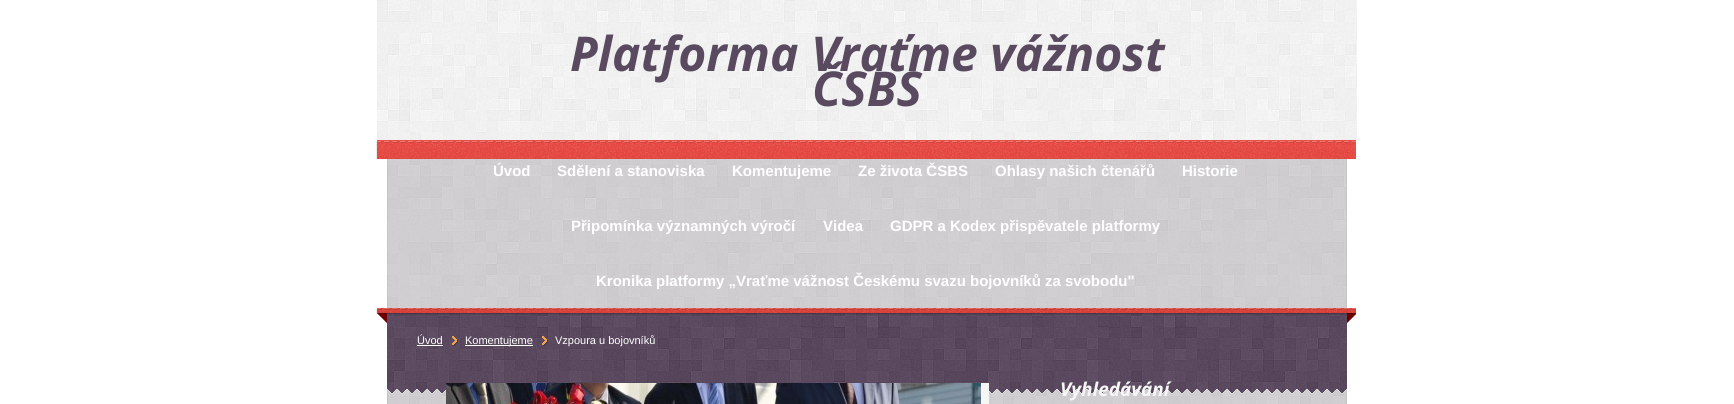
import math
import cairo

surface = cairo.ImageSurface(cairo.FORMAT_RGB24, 1734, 404)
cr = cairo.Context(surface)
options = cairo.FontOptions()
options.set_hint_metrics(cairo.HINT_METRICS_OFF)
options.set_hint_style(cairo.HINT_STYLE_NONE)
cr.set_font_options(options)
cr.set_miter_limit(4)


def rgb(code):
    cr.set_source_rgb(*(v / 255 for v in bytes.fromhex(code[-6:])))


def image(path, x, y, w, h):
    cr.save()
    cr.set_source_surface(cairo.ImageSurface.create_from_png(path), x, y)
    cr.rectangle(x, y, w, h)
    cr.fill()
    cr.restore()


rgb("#ffffff")
cr.paint()
image("img/1.png", 387, 159, 960, 245)
image("img/2.png", 377, 0, 980, 140)
image("img/3.png", 376, 140, 980, 19)
image("img/4.png", 376, 308, 980, 86)
rgb("#f6f6f6")
cr.rectangle(981, 383, 8, 21)
cr.fill()
image("img/5.png", 446, 383, 535, 21)
rgb("#ffffff")
cr.rectangle(417, 345, 26, 1)
cr.fill()
image("img/6.png", 452, 336, 6, 10)
cr.rectangle(465, 345, 68, 1)
cr.fill()
image("img/7.png", 542, 336, 6, 10)
cr.select_font_face("Open Sans", cairo.FONT_SLANT_ITALIC, cairo.FONT_WEIGHT_BOLD)
cr.set_font_size(48)
rgb("#594a5f")
cr.move_to(570, 71)
cr.show_text("Platforma Vraťme vážnost")
cr.move_to(812, 106)
cr.show_text("ČSBS")
cr.select_font_face("Liberation Sans", cairo.FONT_SLANT_NORMAL, cairo.FONT_WEIGHT_BOLD)
cr.set_font_size(15)
rgb("#ffffff")
for x, y, s in [
    (493, 176, "Úvod"),
    (557, 176, "Sdělení a stanoviska"),
    (732, 176, "Komentujeme"),
    (858, 176, "Ze života ČSBS"),
    (995, 176, "Ohlasy našich čtenářů"),
    (1182, 176, "Historie"),
    (571, 231, "Připomínka významných výročí"),
    (823, 231, "Videa"),
    (890, 231, "GDPR a Kodex přispěvatele platformy"),
    (596, 286, "Kronika platformy „Vraťme vážnost Českému svazu bojovníků za svobodu\""),
]:
    cr.move_to(x, y)
    cr.show_text(s)
cr.select_font_face("Open Sans", cairo.FONT_SLANT_ITALIC, cairo.FONT_WEIGHT_BOLD)
cr.set_font_size(19)
rgb("#f6f6f6")
cr.move_to(1060, 396)
cr.show_text("Vyhledávání")
cr.select_font_face("Liberation Sans")
cr.set_font_size(11)
rgb("#ffffff")
for x, y, s in [
    (417, 344, "Úvod"),
    (465, 344, "Komentujeme"),
    (555, 344, "Vzpoura u bojovníků"),
]:
    cr.move_to(x, y)
    cr.show_text(s)
surface.write_to_png("page.png")
